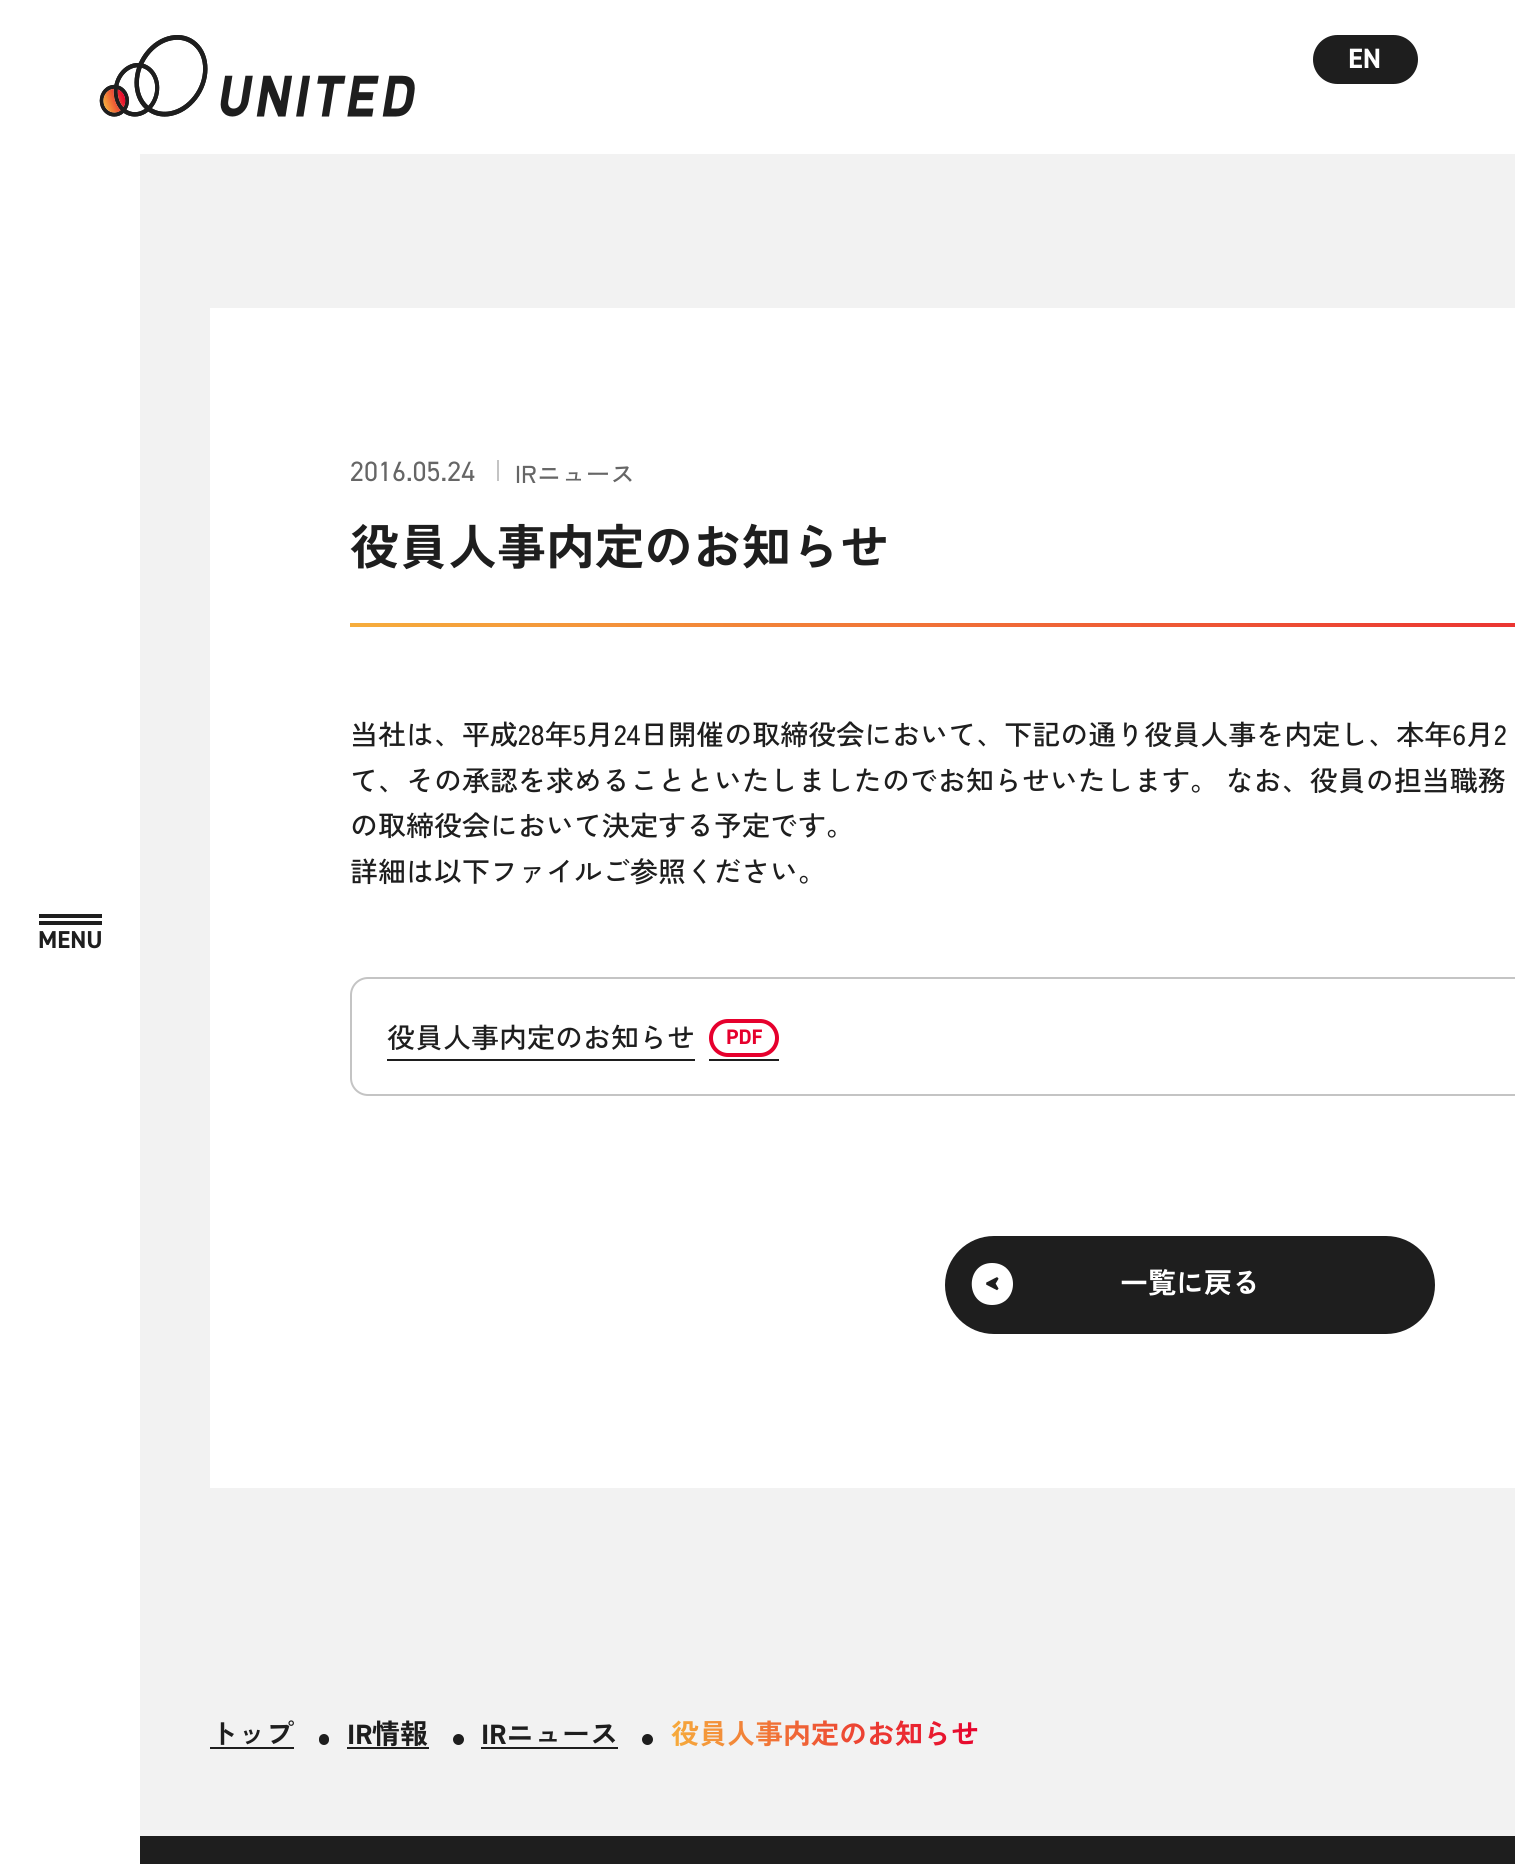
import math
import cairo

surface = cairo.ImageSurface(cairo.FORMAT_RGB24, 1515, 1864)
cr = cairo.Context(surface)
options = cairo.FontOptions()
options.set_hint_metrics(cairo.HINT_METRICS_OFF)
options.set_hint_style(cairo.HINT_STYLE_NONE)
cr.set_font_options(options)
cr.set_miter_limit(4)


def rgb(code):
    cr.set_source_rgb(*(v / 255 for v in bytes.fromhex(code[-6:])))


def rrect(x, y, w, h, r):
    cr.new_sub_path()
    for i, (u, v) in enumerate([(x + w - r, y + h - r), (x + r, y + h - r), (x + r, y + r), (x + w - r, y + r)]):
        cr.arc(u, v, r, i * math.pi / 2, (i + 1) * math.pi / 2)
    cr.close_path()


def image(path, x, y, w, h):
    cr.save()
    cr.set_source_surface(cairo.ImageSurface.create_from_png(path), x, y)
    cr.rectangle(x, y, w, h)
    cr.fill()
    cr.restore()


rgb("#f2f2f2")
cr.paint()
rgb("#ffffff")
cr.rectangle(0, 0, 1515, 154)
cr.fill()
image("img/1.png", 99, 35, 316, 82)
rgb("#1e1e1e")
rrect(1313, 35, 105, 49, 24.5)
cr.fill()
for x, y, w, h, color in [
    (0, 154, 140, 1710, "#ffffff"),
    (39, 914, 63, 4, "#1e1e1e"),
    (39, 921, 63, 4, "#1e1e1e"),
    (210, 308, 1305, 1180, "#ffffff"),
    (497, 460, 2, 21, "#c4c4c4"),
]:
    rgb(color)
    cr.rectangle(x, y, w, h)
    cr.fill()
gradient = cairo.LinearGradient(385, 793, 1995, 457)
gradient.add_color_stop_rgba(0, 0.965, 0.678, 0.235, 1)
gradient.add_color_stop_rgba(1, 0.902, 0, 0.176, 1)
cr.set_source(gradient)
cr.rectangle(350, 623, 1165, 4)
cr.fill()
rrect(351, 978, 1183, 117, 17)
rgb("#c4c4c4")
cr.stroke()
rgb("#1e1e1e")
cr.rectangle(387, 1059, 308, 2)
cr.fill()
cr.rectangle(709, 1059, 70, 2)
cr.fill()
rrect(711, 1021, 66, 34, 17)
rgb("#e6002d")
cr.set_line_width(4)
cr.stroke()
rgb("#1e1e1e")
rrect(945, 1236, 490, 98, 49)
cr.fill()
rgb("#ffffff")
cr.new_path()
cr.move_to(992, 1263)
cr.curve_to(965, 1263, 965, 1305, 992, 1305)
cr.curve_to(1020, 1305, 1020, 1263, 992, 1263)
cr.close_path()
cr.fill()
image("img/2.png", 986, 1277, 13, 14)
rgb("#1e1e1e")
cr.rectangle(210, 1747, 84, 2)
cr.fill()
rrect(319, 1734, 10, 11, 5)
cr.fill()
cr.rectangle(347, 1747, 82, 2)
cr.fill()
cr.arc(458.5, 1739.5, 5.5, 0, 2 * math.pi)
cr.fill()
cr.rectangle(481, 1747, 137, 2)
cr.fill()
cr.arc(647.5, 1739.5, 5.5, 0, 2 * math.pi)
cr.fill()
cr.rectangle(140, 1836, 1375, 28)
cr.fill()
cr.select_font_face("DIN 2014", cairo.FONT_SLANT_NORMAL, cairo.FONT_WEIGHT_BOLD)
cr.set_font_size(28)
rgb("#ffffff")
cr.move_to(1348, 68)
cr.show_text("EN")
cr.set_font_size(24.5)
rgb("#1e1e1e")
cr.move_to(38, 948)
cr.show_text("MENU")
cr.select_font_face("DIN 2014")
cr.set_font_size(28)
rgb("#666666")
cr.move_to(350, 481)
cr.show_text("2016.05.24")
cr.select_font_face("Zen Kaku Gothic New Medium")
cr.set_font_size(24.5)
cr.move_to(515, 483)
cr.show_text("IRニュース")
cr.select_font_face("Zen Kaku Gothic New", cairo.FONT_SLANT_NORMAL, cairo.FONT_WEIGHT_BOLD)
cr.set_font_size(49)
rgb("#1e1e1e")
cr.move_to(350, 565)
cr.show_text("役員人事内定のお知らせ")
cr.select_font_face("Zen Kaku Gothic New Medium")
cr.set_font_size(28)
for x, y, s in [
    (350, 745, "当社は、平成28年5月24日開催の取締役会において、下記の通り役員人事を内定し、本年6月2"),
    (350, 791, "て、その承認を求めることといたしましたのでお知らせいたします。 なお、役員の担当職務"),
    (350, 836, "の取締役会において決定する予定です。"),
    (350, 882, "詳細は以下ファイルご参照ください。"),
    (387, 1048, "役員人事内定のお知らせ"),
]:
    cr.move_to(x, y)
    cr.show_text(s)
cr.select_font_face("DIN 2014", cairo.FONT_SLANT_NORMAL, cairo.FONT_WEIGHT_BOLD)
cr.set_font_size(21)
rgb("#e6002d")
cr.move_to(726, 1044)
cr.show_text("PDF")
cr.select_font_face("Zen Kaku Gothic New", cairo.FONT_SLANT_NORMAL, cairo.FONT_WEIGHT_BOLD)
cr.set_font_size(28)
rgb("#ffffff")
cr.move_to(1120, 1293)
cr.show_text("一覧に戻る")
rgb("#1e1e1e")
cr.move_to(210, 1744)
cr.show_text("トップ")
cr.select_font_face("DIN 2014", cairo.FONT_SLANT_NORMAL, cairo.FONT_WEIGHT_BOLD)
cr.move_to(347, 1744)
cr.show_text("IR")
cr.select_font_face("Zen Kaku Gothic New", cairo.FONT_SLANT_NORMAL, cairo.FONT_WEIGHT_BOLD)
cr.move_to(372, 1744)
cr.show_text("情報")
cr.select_font_face("DIN 2014", cairo.FONT_SLANT_NORMAL, cairo.FONT_WEIGHT_BOLD)
cr.move_to(481, 1744)
cr.show_text("IR")
cr.select_font_face("Zen Kaku Gothic New", cairo.FONT_SLANT_NORMAL, cairo.FONT_WEIGHT_BOLD)
cr.move_to(506, 1744)
cr.show_text("ニュース")
gradient = cairo.LinearGradient(674, 1766, 976, 1703)
gradient.add_color_stop_rgba(0, 0.965, 0.678, 0.235, 1)
gradient.add_color_stop_rgba(1, 0.902, 0, 0.176, 1)
cr.set_source(gradient)
cr.move_to(671, 1744)
cr.show_text("役員人事内定のお知らせ")
surface.write_to_png("page.png")
